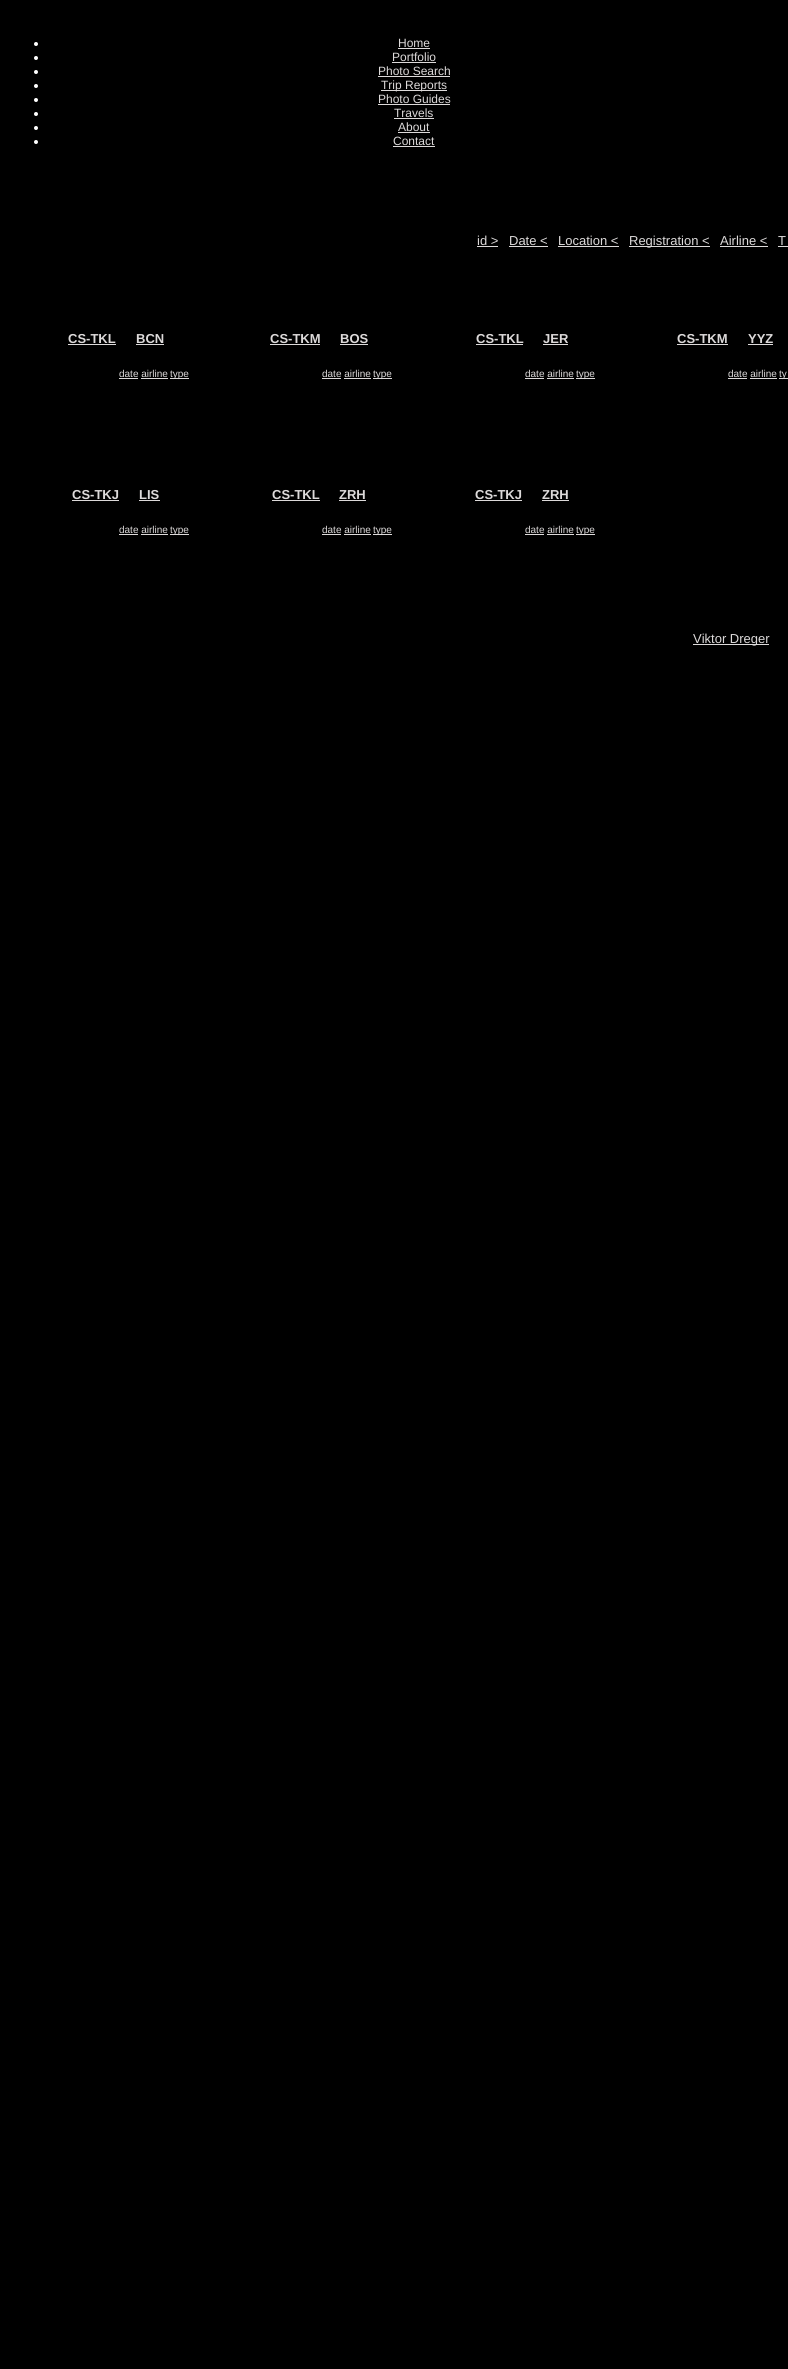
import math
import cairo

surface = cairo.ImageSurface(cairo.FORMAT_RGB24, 788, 2369)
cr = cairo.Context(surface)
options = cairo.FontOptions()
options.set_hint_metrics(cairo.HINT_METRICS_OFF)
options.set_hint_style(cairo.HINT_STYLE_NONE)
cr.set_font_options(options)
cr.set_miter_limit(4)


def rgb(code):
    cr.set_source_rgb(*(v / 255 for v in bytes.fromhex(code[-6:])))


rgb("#000000")
cr.paint()
rgb("#ffffff")
cr.arc(36, 44, 2, 0, 2 * math.pi)
cr.fill()
rgb("#dddada")
cr.rectangle(398, 48, 32, 1)
cr.fill()
rgb("#ffffff")
cr.arc(36, 58, 2, 0, 2 * math.pi)
cr.fill()
rgb("#dddada")
cr.rectangle(392, 62, 44, 1)
cr.fill()
rgb("#ffffff")
cr.arc(36, 72, 2, 0, 2 * math.pi)
cr.fill()
rgb("#dddada")
cr.rectangle(378, 76, 72, 1)
cr.fill()
rgb("#ffffff")
cr.arc(36, 86, 2, 0, 2 * math.pi)
cr.fill()
rgb("#dddada")
cr.rectangle(381, 90, 66, 1)
cr.fill()
rgb("#ffffff")
cr.arc(36, 100, 2, 0, 2 * math.pi)
cr.fill()
rgb("#dddada")
cr.rectangle(378, 104, 72, 1)
cr.fill()
rgb("#ffffff")
cr.arc(36, 114, 2, 0, 2 * math.pi)
cr.fill()
rgb("#dddada")
cr.rectangle(394, 118, 40, 1)
cr.fill()
rgb("#ffffff")
cr.arc(36, 128, 2, 0, 2 * math.pi)
cr.fill()
rgb("#dddada")
cr.rectangle(398, 132, 32, 1)
cr.fill()
rgb("#ffffff")
cr.arc(36, 142, 2, 0, 2 * math.pi)
cr.fill()
for x, y, w, h, color in [
    (393, 146, 42, 1, "#dddada"),
    (477, 246, 21, 1, "#dddada"),
    (509, 246, 39, 1, "#dddada"),
    (558, 246, 61, 1, "#dddada"),
    (629, 246, 81, 1, "#dddada"),
    (720, 246, 48, 1, "#dddada"),
    (778, 246, 10, 1, "#dddada"),
    (68, 344, 48, 1, "#dddada"),
    (136, 344, 28, 1, "#dddada"),
    (119, 378, 19, 1, "#dddada"),
    (141, 378, 27, 1, "#dddada"),
    (170, 378, 19, 1, "#dddada"),
    (270, 344, 50, 1, "#dddada"),
    (340, 344, 28, 1, "#dddada"),
    (322, 378, 19, 1, "#dddada"),
    (344, 378, 27, 1, "#dddada"),
    (373, 378, 19, 1, "#dddada"),
    (476, 344, 47, 1, "#dddada"),
    (543, 344, 25, 1, "#dddada"),
    (525, 378, 19, 1, "#dddada"),
    (547, 378, 27, 1, "#dddada"),
    (576, 378, 19, 1, "#dddada"),
    (677, 344, 51, 1, "#dddada"),
    (748, 344, 25, 1, "#dddada"),
    (728, 378, 19, 1, "#dddada"),
    (750, 378, 27, 1, "#dddada"),
    (779, 378, 9, 1, "#dddada"),
    (72, 500, 47, 1, "#dddada"),
    (139, 500, 21, 1, "#dddada"),
    (119, 534, 19, 1, "#dddada"),
    (141, 534, 27, 1, "#dddada"),
    (170, 534, 19, 1, "#dddada"),
    (272, 500, 48, 1, "#dddada"),
    (339, 500, 27, 1, "#dddada"),
    (322, 534, 19, 1, "#dddada"),
    (344, 534, 27, 1, "#dddada"),
    (373, 534, 19, 1, "#dddada"),
    (475, 500, 47, 1, "#dddada"),
    (542, 500, 27, 1, "#dddada"),
    (525, 534, 19, 1, "#dddada"),
    (547, 534, 27, 1, "#dddada"),
    (576, 534, 19, 1, "#dddada"),
    (693, 644, 76, 1, "#dddada"),
]:
    rgb(color)
    cr.rectangle(x, y, w, h)
    cr.fill()
cr.select_font_face("Liberation Sans")
cr.set_font_size(12)
for x, y, s in [
    (398, 47, "Home"),
    (392, 61, "Portfolio"),
    (378, 75, "Photo Search"),
    (381, 89, "Trip Reports"),
    (378, 103, "Photo Guides"),
    (394, 117, "Travels"),
    (398, 131, "About"),
    (393, 145, "Contact"),
]:
    cr.move_to(x, y)
    cr.show_text(s)
cr.set_font_size(13)
for x, y, s in [
    (477, 245, "id >"),
    (509, 245, "Date <"),
    (558, 245, "Location <"),
    (629, 245, "Registration <"),
    (720, 245, "Airline <"),
    (778, 245, "T"),
]:
    cr.move_to(x, y)
    cr.show_text(s)
cr.select_font_face("Liberation Sans", cairo.FONT_SLANT_NORMAL, cairo.FONT_WEIGHT_BOLD)
cr.move_to(68, 343)
cr.show_text("CS-TKL")
cr.move_to(136, 343)
cr.show_text("BCN")
cr.select_font_face("Liberation Sans")
cr.set_font_size(10)
cr.move_to(119, 377)
cr.show_text("date airline")
cr.move_to(170, 377)
cr.show_text("type")
cr.select_font_face("Liberation Sans", cairo.FONT_SLANT_NORMAL, cairo.FONT_WEIGHT_BOLD)
cr.set_font_size(13)
cr.move_to(270, 343)
cr.show_text("CS-TKM")
cr.move_to(340, 343)
cr.show_text("BOS")
cr.select_font_face("Liberation Sans")
cr.set_font_size(10)
cr.move_to(322, 377)
cr.show_text("date airline")
cr.move_to(373, 377)
cr.show_text("type")
cr.select_font_face("Liberation Sans", cairo.FONT_SLANT_NORMAL, cairo.FONT_WEIGHT_BOLD)
cr.set_font_size(13)
cr.move_to(476, 343)
cr.show_text("CS-TKL")
cr.move_to(543, 343)
cr.show_text("JER")
cr.select_font_face("Liberation Sans")
cr.set_font_size(10)
cr.move_to(525, 377)
cr.show_text("date airline")
cr.move_to(576, 377)
cr.show_text("type")
cr.select_font_face("Liberation Sans", cairo.FONT_SLANT_NORMAL, cairo.FONT_WEIGHT_BOLD)
cr.set_font_size(13)
cr.move_to(677, 343)
cr.show_text("CS-TKM")
cr.move_to(748, 343)
cr.show_text("YYZ")
cr.select_font_face("Liberation Sans")
cr.set_font_size(10)
cr.move_to(728, 377)
cr.show_text("date airline")
cr.move_to(779, 377)
cr.show_text("ty")
cr.select_font_face("Liberation Sans", cairo.FONT_SLANT_NORMAL, cairo.FONT_WEIGHT_BOLD)
cr.set_font_size(13)
cr.move_to(72, 499)
cr.show_text("CS-TKJ")
cr.move_to(139, 499)
cr.show_text("LIS")
cr.select_font_face("Liberation Sans")
cr.set_font_size(10)
cr.move_to(119, 533)
cr.show_text("date airline")
cr.move_to(170, 533)
cr.show_text("type")
cr.select_font_face("Liberation Sans", cairo.FONT_SLANT_NORMAL, cairo.FONT_WEIGHT_BOLD)
cr.set_font_size(13)
cr.move_to(272, 499)
cr.show_text("CS-TKL")
cr.move_to(339, 499)
cr.show_text("ZRH")
cr.select_font_face("Liberation Sans")
cr.set_font_size(10)
cr.move_to(322, 533)
cr.show_text("date airline")
cr.move_to(373, 533)
cr.show_text("type")
cr.select_font_face("Liberation Sans", cairo.FONT_SLANT_NORMAL, cairo.FONT_WEIGHT_BOLD)
cr.set_font_size(13)
cr.move_to(475, 499)
cr.show_text("CS-TKJ")
cr.move_to(542, 499)
cr.show_text("ZRH")
cr.select_font_face("Liberation Sans")
cr.set_font_size(10)
cr.move_to(525, 533)
cr.show_text("date airline")
cr.move_to(576, 533)
cr.show_text("type")
cr.set_font_size(13)
cr.move_to(693, 643)
cr.show_text("Viktor Dreger")
surface.write_to_png("page.png")
